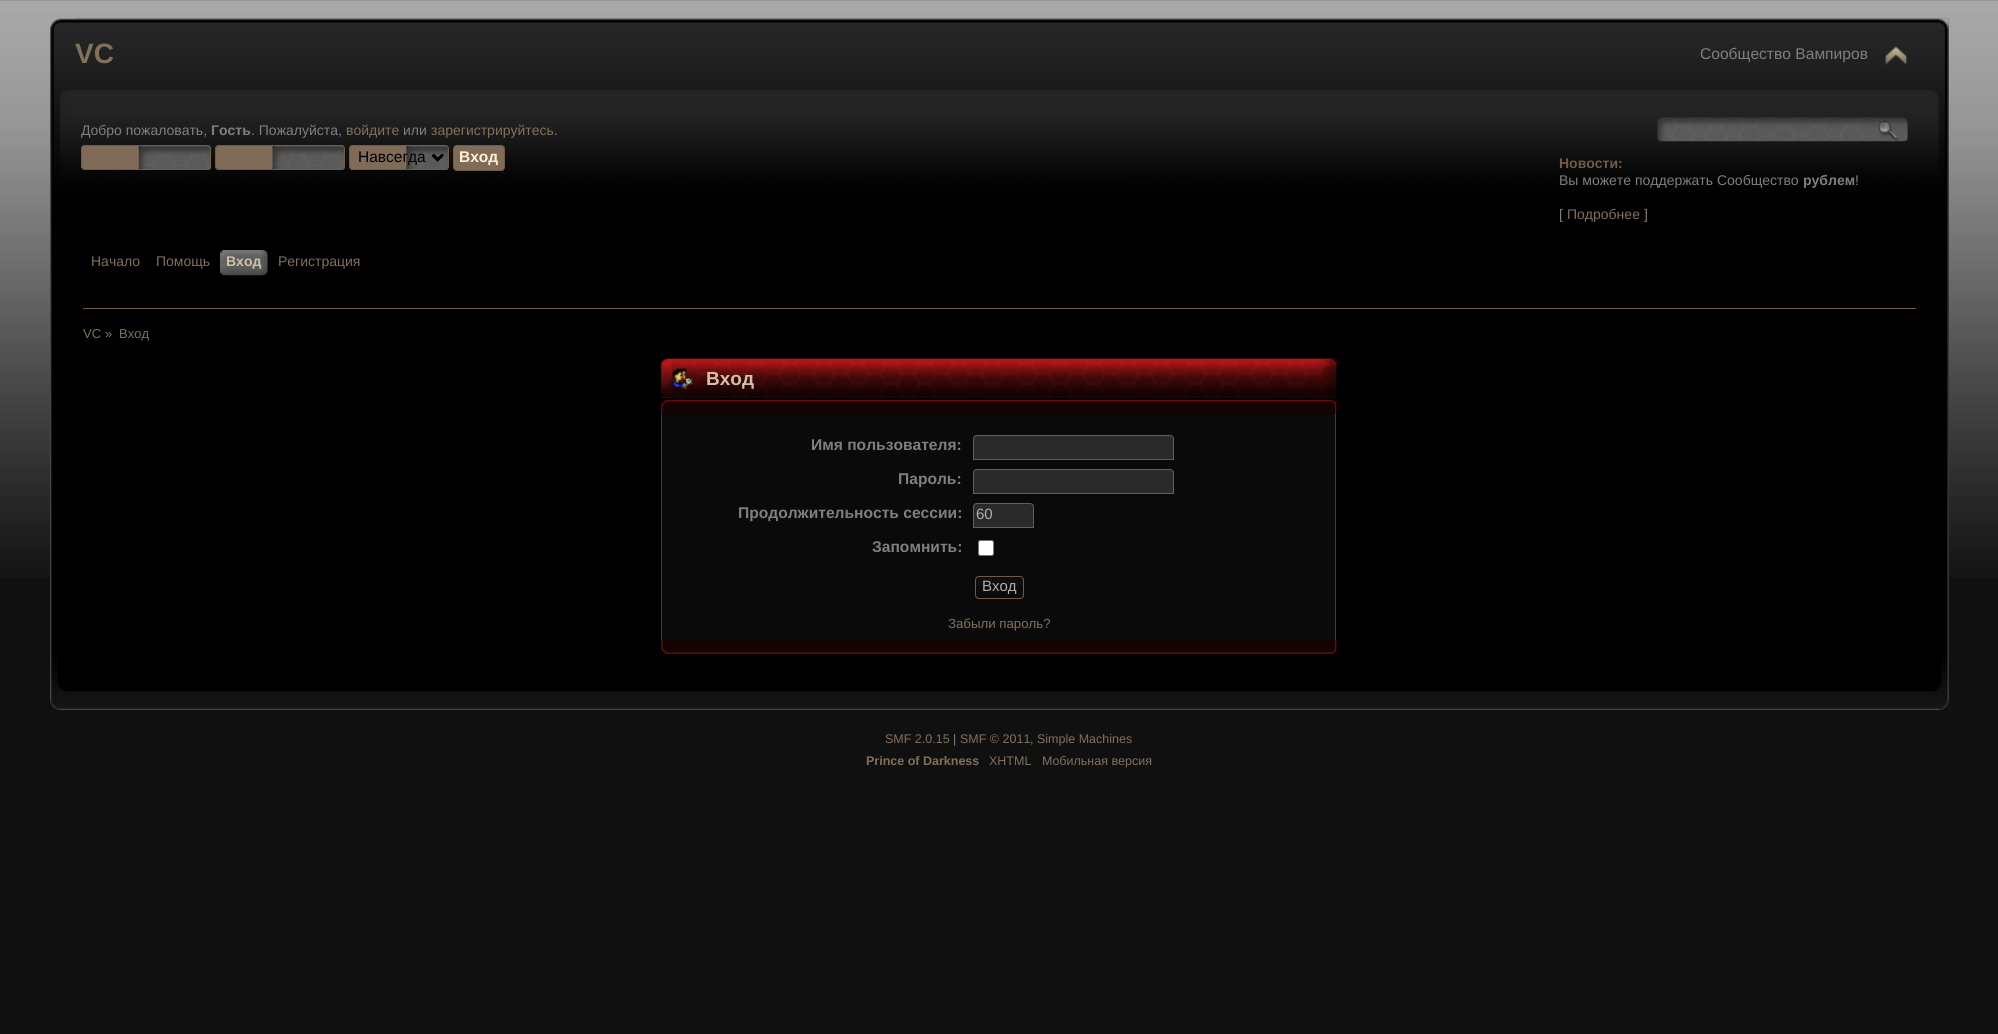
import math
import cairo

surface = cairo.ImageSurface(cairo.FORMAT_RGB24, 1998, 1034)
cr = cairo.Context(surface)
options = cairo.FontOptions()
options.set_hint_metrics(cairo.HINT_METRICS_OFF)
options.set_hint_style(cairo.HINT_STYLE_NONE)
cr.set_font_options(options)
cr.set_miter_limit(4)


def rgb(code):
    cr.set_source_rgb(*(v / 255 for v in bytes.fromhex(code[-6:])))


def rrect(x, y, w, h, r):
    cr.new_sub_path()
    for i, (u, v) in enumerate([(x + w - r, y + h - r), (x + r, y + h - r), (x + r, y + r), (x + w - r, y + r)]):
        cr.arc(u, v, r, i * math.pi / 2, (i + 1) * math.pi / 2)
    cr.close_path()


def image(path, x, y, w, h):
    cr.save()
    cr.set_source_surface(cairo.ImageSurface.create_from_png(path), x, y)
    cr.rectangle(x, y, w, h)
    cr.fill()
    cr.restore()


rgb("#101010")
cr.paint()
image("img/1.png", 0, 0, 1998, 577)
image("img/2.png", 50, 18, 1899, 282)
image("img/3.png", 75, 18, 1874, 282)
image("img/4.png", 1885, 46, 22, 19)
rgb("#7f6b57")
rrect(81, 145, 130, 25, 4)
cr.fill()
image("img/5.png", 138, 146, 74, 24)
rrect(81.5, 145.5, 129, 24, 3.5)
rgb("#6f5c45")
cr.set_line_width(1)
cr.stroke()
rgb("#7f6b57")
rrect(215, 145, 130, 25, 4)
cr.fill()
image("img/6.png", 272, 146, 73, 24)
rrect(215.5, 145.5, 129, 24, 3.5)
rgb("#6f5c45")
cr.stroke()
rgb("#7f6b57")
rrect(349, 145, 100, 25, 4)
cr.fill()
image("img/7.png", 406, 146, 43, 24)
rrect(349.5, 145.5, 99, 24, 3.5)
rgb("#6f5c45")
cr.stroke()
cr.new_path()
cr.move_to(433, 154.5)
cr.line_to(438, 159.5)
cr.line_to(443, 154.5)
rgb("#000000")
cr.set_line_width(2.5)
cr.stroke()
rgb("#7f6b57")
rrect(453.5, 145.5, 51, 25, 3.5)
cr.fill_preserve()
rgb("#6f5c45")
cr.set_line_width(1)
cr.stroke()
image("img/8.png", 1657, 117, 251, 25)
image("img/9.png", 226, 250, 42, 26)
image("img/10.png", 220, 250, 41, 26)
rgb("#000000")
cr.rectangle(52, 300, 1897, 355)
cr.fill()
image("img/11.png", 50, 300, 2, 355)
image("img/12.png", 1947, 300, 2, 355)
rgb("#6f5c45")
cr.rectangle(83, 308, 1833, 1)
cr.fill()
rgb("#222222")
cr.rectangle(661, 359, 675, 39)
cr.fill()
image("img/13.png", 661, 358, 676, 40)
image("img/14.png", 672, 358, 664, 40)
image("img/15.png", 672, 368, 21, 21)
image("img/16.png", 661, 399, 676, 15)
image("img/17.png", 1331, 399, 6, 15)
for x, y, w, h, color in [
    (662, 414, 673, 226, "#0a0a0a"),
    (1335, 414, 1, 226, "#3f3f3f"),
    (661, 414, 1, 226, "#3f3f3f"),
]:
    rgb(color)
    cr.rectangle(x, y, w, h)
    cr.fill()
rgb("#2a2a2a")
cr.new_path()
cr.move_to(977, 435.5)
cr.line_to(1170, 435.5)
cr.curve_to(1172, 435.5, 1173.5, 437, 1173.5, 439)
cr.line_to(1173.5, 459.5)
cr.line_to(973.5, 459.5)
cr.line_to(973.5, 439)
cr.curve_to(973.5, 437, 975, 435.5, 977, 435.5)
cr.close_path()
cr.fill_preserve()
rgb("#6f5c45")
cr.stroke()
rgb("#2a2a2a")
cr.new_path()
cr.move_to(977, 469.5)
cr.line_to(1170, 469.5)
cr.curve_to(1172, 469.5, 1173.5, 471, 1173.5, 473)
cr.line_to(1173.5, 493.5)
cr.line_to(973.5, 493.5)
cr.line_to(973.5, 473)
cr.curve_to(973.5, 471, 975, 469.5, 977, 469.5)
cr.close_path()
cr.fill_preserve()
rgb("#6f5c45")
cr.stroke()
rgb("#2a2a2a")
cr.new_path()
cr.move_to(977, 503.5)
cr.line_to(1030, 503.5)
cr.curve_to(1032, 503.5, 1033.5, 505, 1033.5, 507)
cr.line_to(1033.5, 527.5)
cr.line_to(973.5, 527.5)
cr.line_to(973.5, 507)
cr.curve_to(973.5, 505, 975, 503.5, 977, 503.5)
cr.close_path()
cr.fill_preserve()
rgb("#6f5c45")
cr.stroke()
rgb("#ffffff")
rrect(978.5, 540.5, 15, 15, 2)
cr.fill_preserve()
rgb("#767676")
cr.stroke()
rgb("#0f0f0f")
cr.rectangle(975, 578, 48, 8)
cr.fill()
rrect(975.5, 576.5, 48, 22, 3.5)
rgb("#6f5c45")
cr.stroke()
image("img/18.png", 661, 640, 676, 14)
image("img/19.png", 1331, 640, 6, 14)
image("img/20.png", 50, 655, 1899, 55)
image("img/21.png", 1934, 655, 15, 55)
cr.select_font_face("Liberation Sans", cairo.FONT_SLANT_NORMAL, cairo.FONT_WEIGHT_BOLD)
cr.set_font_size(28)
rgb("#82705b")
cr.move_to(75, 63)
cr.show_text("VC")
cr.select_font_face("Liberation Sans")
cr.set_font_size(15.6)
rgb("#7f7f7f")
cr.move_to(1700, 59)
cr.show_text("Сообщество Вампиров")
cr.set_font_size(14)
cr.move_to(81, 135)
cr.show_text("Добро пожаловать,")
cr.select_font_face("Liberation Sans", cairo.FONT_SLANT_NORMAL, cairo.FONT_WEIGHT_BOLD)
cr.move_to(211, 135)
cr.show_text("Гость")
cr.select_font_face("Liberation Sans")
cr.move_to(251, 135)
cr.show_text(". Пожалуйста,")
rgb("#82705b")
cr.move_to(346, 135)
cr.show_text("войдите")
rgb("#7f7f7f")
cr.move_to(403, 135)
cr.show_text("или")
rgb("#82705b")
cr.move_to(431, 135)
cr.show_text("зарегистрируйтесь")
rgb("#7f7f7f")
cr.move_to(554, 135)
cr.show_text(".")
cr.set_font_size(15.5)
rgb("#000000")
cr.move_to(358, 162)
cr.show_text("Навсегда")
cr.select_font_face("Liberation Sans", cairo.FONT_SLANT_NORMAL, cairo.FONT_WEIGHT_BOLD)
rgb("#fff2cf")
cr.move_to(459, 162)
cr.show_text("Вход")
cr.set_font_size(14)
rgb("#6f5c45")
cr.move_to(1559, 168)
cr.show_text("Новости:")
cr.select_font_face("Liberation Sans")
rgb("#7f7f7f")
cr.move_to(1559, 185)
cr.show_text("Вы можете поддержать Сообщество")
cr.select_font_face("Liberation Sans", cairo.FONT_SLANT_NORMAL, cairo.FONT_WEIGHT_BOLD)
cr.move_to(1803, 185)
cr.show_text("рублем")
cr.select_font_face("Liberation Sans")
cr.move_to(1855, 185)
cr.show_text("!")
cr.move_to(1559, 219)
cr.show_text("[")
rgb("#82705b")
cr.move_to(1567, 219)
cr.show_text("Подробнее")
rgb("#7f7f7f")
cr.move_to(1644, 219)
cr.show_text("]")
rgb("#82705b")
cr.move_to(91, 266)
cr.show_text("Начало")
cr.move_to(156, 266)
cr.show_text("Помощь")
cr.select_font_face("Liberation Sans", cairo.FONT_SLANT_NORMAL, cairo.FONT_WEIGHT_BOLD)
rgb("#cfc2a8")
cr.move_to(226, 266)
cr.show_text("Вход")
cr.select_font_face("Liberation Sans")
rgb("#82705b")
cr.move_to(278, 266)
cr.show_text("Регистрация")
cr.set_font_size(13)
cr.move_to(83, 338)
cr.show_text("VC")
rgb("#7f7f7f")
cr.move_to(105, 338)
cr.show_text("»")
rgb("#82705b")
cr.move_to(119, 338)
cr.show_text("Вход")
cr.select_font_face("Liberation Sans", cairo.FONT_SLANT_NORMAL, cairo.FONT_WEIGHT_BOLD)
cr.set_font_size(19)
rgb("#cfc2a8")
cr.move_to(706, 385)
cr.show_text("Вход")
cr.set_font_size(15.6)
rgb("#7f7f7f")
for x, y, s in [
    (811, 450, "Имя пользователя:"),
    (898, 484, "Пароль:"),
    (738, 518, "Продолжительность сессии:"),
]:
    cr.move_to(x, y)
    cr.show_text(s)
cr.select_font_face("Liberation Sans")
cr.set_font_size(15)
rgb("#afafaf")
cr.move_to(976, 519)
cr.show_text("60")
cr.select_font_face("Liberation Sans", cairo.FONT_SLANT_NORMAL, cairo.FONT_WEIGHT_BOLD)
cr.set_font_size(15.6)
rgb("#7f7f7f")
cr.move_to(872, 552)
cr.show_text("Запомнить:")
cr.select_font_face("Liberation Sans")
cr.set_font_size(15)
rgb("#afafaf")
cr.move_to(982, 591)
cr.show_text("Вход")
cr.set_font_size(13.25)
rgb("#82705b")
cr.move_to(948, 628)
cr.show_text("Забыли пароль?")
cr.set_font_size(12.5)
cr.move_to(885, 743)
cr.show_text("SMF 2.0.15")
rgb("#7f7f7f")
cr.move_to(953, 743)
cr.show_text("|")
rgb("#82705b")
cr.move_to(960, 743)
cr.show_text("SMF © 2011")
rgb("#7f7f7f")
cr.move_to(1030, 743)
cr.show_text(",")
rgb("#82705b")
cr.move_to(1037, 743)
cr.show_text("Simple Machines")
cr.select_font_face("Liberation Sans", cairo.FONT_SLANT_NORMAL, cairo.FONT_WEIGHT_BOLD)
cr.move_to(866, 765)
cr.show_text("Prince of Darkness")
cr.select_font_face("Liberation Sans")
cr.move_to(989, 765)
cr.show_text("XHTML")
cr.move_to(1042, 765)
cr.show_text("Мобильная версия")
surface.write_to_png("page.png")
